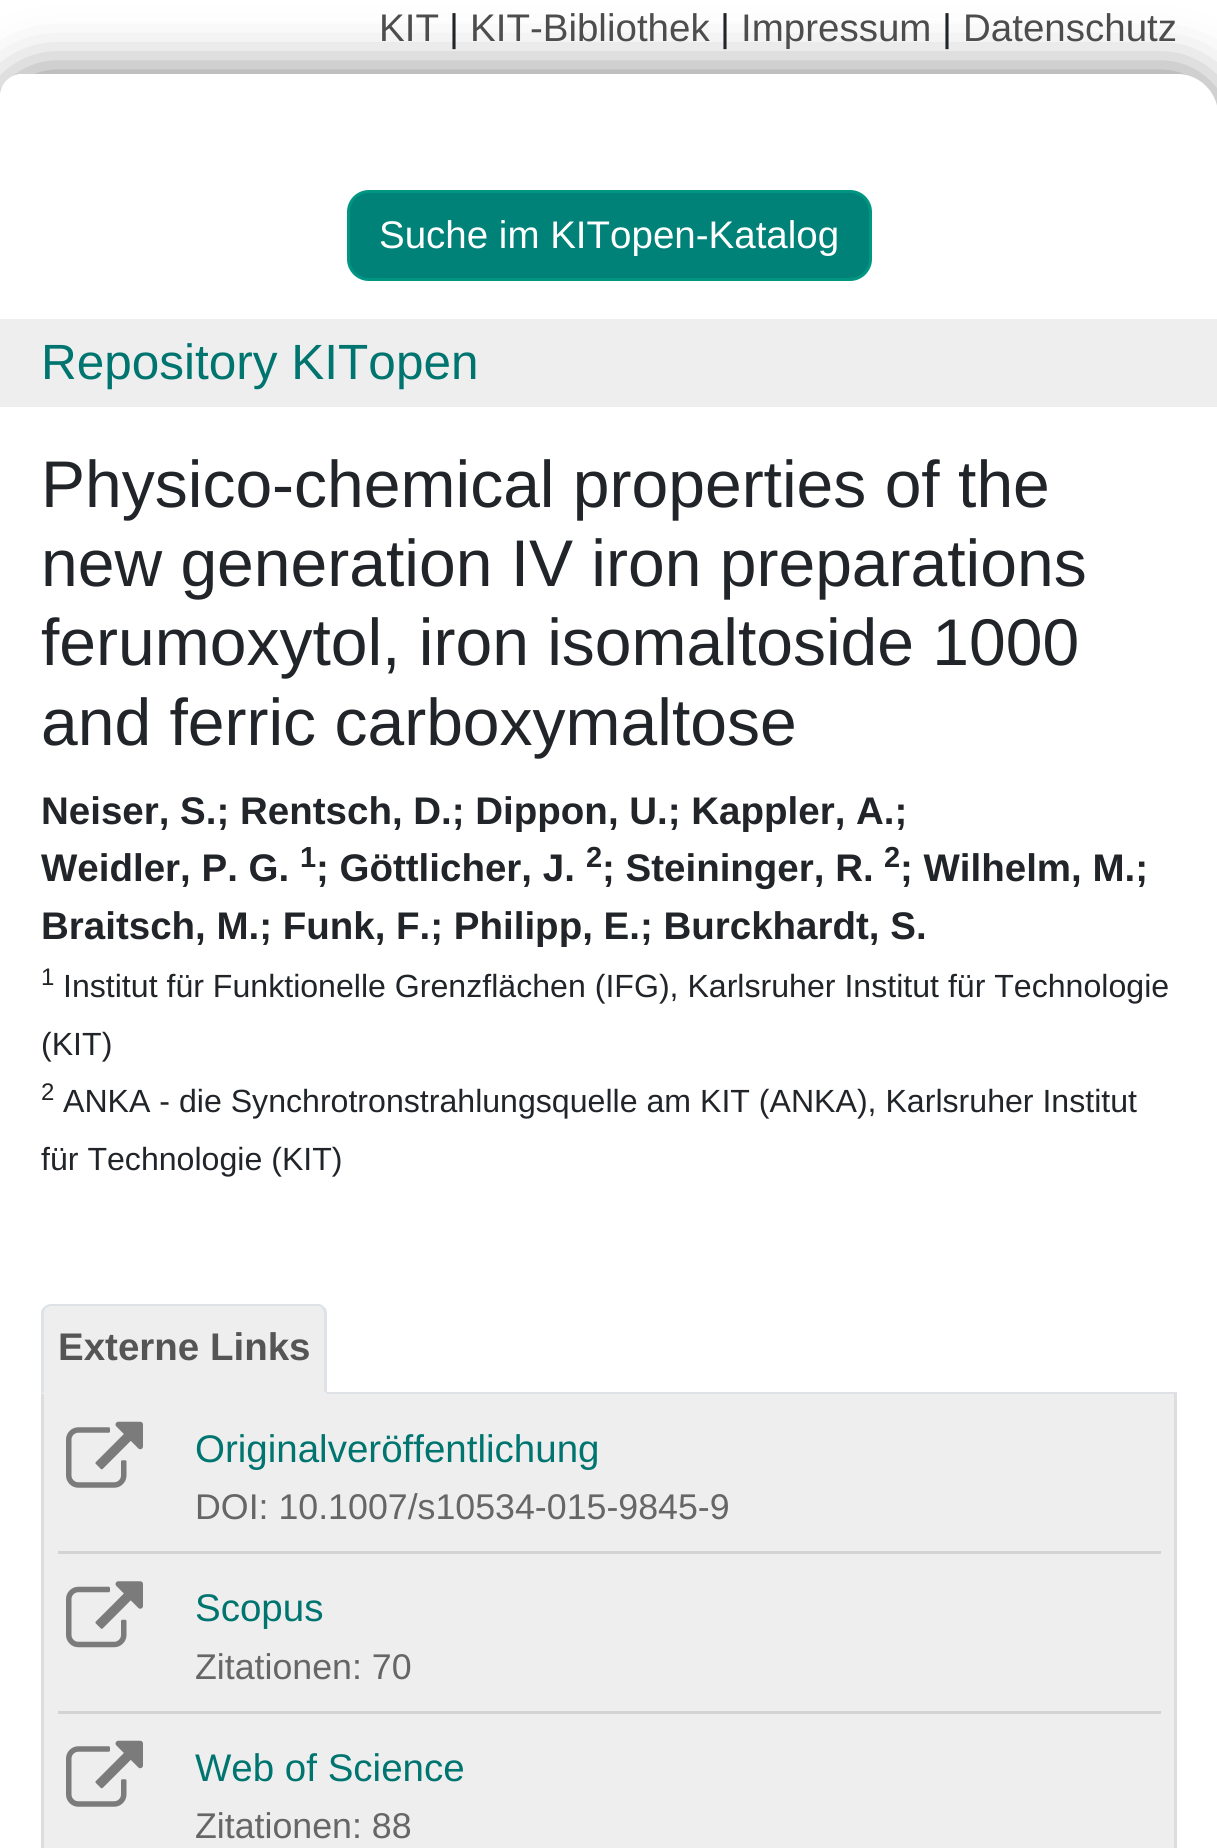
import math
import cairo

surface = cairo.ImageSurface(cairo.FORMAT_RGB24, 1217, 1848)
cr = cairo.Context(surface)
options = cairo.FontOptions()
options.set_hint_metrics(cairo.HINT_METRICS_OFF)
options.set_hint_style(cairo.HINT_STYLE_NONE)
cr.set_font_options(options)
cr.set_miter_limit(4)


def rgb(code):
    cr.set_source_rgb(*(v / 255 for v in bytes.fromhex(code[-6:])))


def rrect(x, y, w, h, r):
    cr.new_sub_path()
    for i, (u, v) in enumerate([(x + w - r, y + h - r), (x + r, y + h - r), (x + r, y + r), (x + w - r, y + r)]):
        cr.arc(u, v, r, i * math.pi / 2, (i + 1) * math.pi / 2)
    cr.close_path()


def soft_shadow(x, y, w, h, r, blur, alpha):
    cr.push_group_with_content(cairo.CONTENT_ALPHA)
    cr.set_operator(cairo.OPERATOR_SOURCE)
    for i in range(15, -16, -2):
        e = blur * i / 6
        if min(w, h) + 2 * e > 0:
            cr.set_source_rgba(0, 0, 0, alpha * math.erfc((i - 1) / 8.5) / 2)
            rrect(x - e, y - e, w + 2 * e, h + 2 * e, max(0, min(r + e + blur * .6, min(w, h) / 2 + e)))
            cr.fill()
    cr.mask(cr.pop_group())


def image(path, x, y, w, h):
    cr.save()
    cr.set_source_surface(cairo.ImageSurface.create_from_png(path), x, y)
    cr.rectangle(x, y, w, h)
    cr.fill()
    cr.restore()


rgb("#ffffff")
cr.paint()
cr.save()
cr.set_fill_rule(cairo.FILL_RULE_EVEN_ODD)
cr.new_path()
cr.move_to(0, 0)
cr.line_to(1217, 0)
cr.line_to(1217, 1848)
cr.line_to(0, 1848)
cr.close_path()
cr.move_to(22, 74)
cr.line_to(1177, 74)
cr.curve_to(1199.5, 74, 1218, 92.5, 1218, 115)
cr.line_to(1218, 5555)
cr.curve_to(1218, 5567, 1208, 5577, 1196, 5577)
cr.line_to(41, 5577)
cr.curve_to(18.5, 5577, 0, 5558.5, 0, 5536)
cr.line_to(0, 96)
cr.curve_to(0, 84, 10, 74, 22, 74)
cr.close_path()
cr.clip()
rgb("#808080")
soft_shadow(0, 74, 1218, 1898, 41, 27.5, 1)
cr.restore()
rgb("#008278")
rrect(348.5, 191.5, 522, 88, 20.5)
cr.fill_preserve()
rgb("#009682")
cr.set_line_width(3)
cr.stroke()
rgb("#eeeeee")
cr.rectangle(0, 319, 1217, 88)
cr.fill()
rgb("#dee2e6")
cr.rectangle(327, 1392, 850, 2)
cr.fill()
rgb("#eeeeee")
cr.new_path()
cr.move_to(52, 1304)
cr.line_to(316, 1304)
cr.curve_to(322, 1304, 327, 1309, 327, 1315)
cr.line_to(327, 1394)
cr.line_to(41, 1394)
cr.line_to(41, 1315)
cr.curve_to(41, 1309, 46, 1304, 52, 1304)
cr.close_path()
cr.fill()
rgb("#dee2e6")
cr.new_path()
cr.move_to(51, 1304)
cr.curve_to(49, 1304, 46, 1305, 44, 1307)
cr.line_to(46, 1308)
cr.curve_to(47, 1307, 49, 1306, 51, 1306)
cr.line_to(318, 1306)
cr.curve_to(320, 1306, 321, 1307, 322, 1308)
cr.line_to(324, 1307)
cr.curve_to(323, 1305, 320, 1304, 318, 1304)
cr.close_path()
cr.fill()
cr.new_path()
cr.move_to(327, 1394)
cr.line_to(327, 1313)
cr.curve_to(327, 1310, 326, 1308, 324, 1307)
cr.line_to(322, 1308)
cr.curve_to(323, 1310, 324, 1311, 324, 1313)
cr.line_to(324, 1391)
cr.close_path()
cr.fill()
rgb("#eeeeee")
cr.new_path()
cr.move_to(327, 1394)
cr.line_to(324, 1391)
cr.line_to(324, 1392)
cr.line_to(44, 1392)
cr.line_to(42, 1394)
cr.close_path()
cr.fill()
rgb("#dee2e6")
cr.new_path()
cr.move_to(41, 1311)
cr.curve_to(42, 1309, 43, 1308, 44, 1307)
cr.line_to(46, 1308)
cr.curve_to(45, 1309, 44, 1311, 44, 1313)
cr.line_to(44, 1392)
cr.line_to(41, 1394)
cr.close_path()
cr.fill()
for x, y, w, h, color in [
    (44, 1394, 1130, 454, "#eeeeee"),
    (1174, 1394, 3, 454, "#dddddd"),
    (41, 1394, 3, 454, "#dddddd"),
    (58, 1551, 1103, 3, "#d3d3d3"),
]:
    rgb(color)
    cr.rectangle(x, y, w, h)
    cr.fill()
image("img/1.png", 66, 1421, 77, 67)
cr.rectangle(58, 1711, 1103, 3)
cr.fill()
image("img/2.png", 66, 1581, 77, 67)
image("img/1.png", 66, 1740, 77, 67)
cr.select_font_face("Liberation Sans")
cr.set_font_size(38.5)
rgb("#4d4d4d")
cr.move_to(379, 41)
cr.show_text("KIT")
rgb("#212529")
cr.move_to(449, 41)
cr.show_text("|")
rgb("#4d4d4d")
cr.move_to(470, 41)
cr.show_text("KIT-Bibliothek")
rgb("#212529")
cr.move_to(720, 41)
cr.show_text("|")
rgb("#4d4d4d")
cr.move_to(741, 41)
cr.show_text("Impressum")
rgb("#212529")
cr.move_to(942, 41)
cr.show_text("|")
rgb("#4d4d4d")
cr.move_to(963, 41)
cr.show_text("Datenschutz")
rgb("#ffffff")
cr.move_to(379, 248)
cr.show_text("Suche im KITopen-Katalog")
cr.set_font_size(49.5)
rgb("#007570")
cr.move_to(41, 379)
cr.show_text("Repository KITopen")
cr.set_font_size(66)
rgb("#212529")
for x, y, s in [
    (41, 507, "Physico-chemical properties of the"),
    (41, 586, "new generation IV iron preparations"),
    (41, 665, "ferumoxytol, iron isomaltoside 1000"),
    (41, 745, "and ferric carboxymaltose"),
]:
    cr.move_to(x, y)
    cr.show_text(s)
cr.select_font_face("Liberation Sans", cairo.FONT_SLANT_NORMAL, cairo.FONT_WEIGHT_BOLD)
cr.set_font_size(38.5)
cr.move_to(41, 824)
cr.show_text("Neiser, S.; Rentsch, D.; Dippon, U.; Kappler, A.;")
cr.move_to(41, 881)
cr.show_text("Weidler, P. G.")
cr.set_font_size(29)
cr.move_to(300, 867)
cr.show_text("1")
cr.set_font_size(38.5)
cr.move_to(316, 881)
cr.show_text("; Göttlicher, J.")
cr.set_font_size(29)
cr.move_to(586, 867)
cr.show_text("2")
cr.set_font_size(38.5)
cr.move_to(602, 881)
cr.show_text("; Steininger, R.")
cr.set_font_size(29)
cr.move_to(884, 867)
cr.show_text("2")
cr.set_font_size(38.5)
cr.move_to(900, 881)
cr.show_text("; Wilhelm, M.;")
cr.move_to(41, 939)
cr.show_text("Braitsch, M.; Funk, F.; Philipp, E.; Burckhardt, S.")
cr.select_font_face("Liberation Sans")
cr.set_font_size(24)
cr.move_to(41, 985)
cr.show_text("1")
cr.set_font_size(32.1)
cr.move_to(63, 997)
cr.show_text("Institut für Funktionelle Grenzflächen (IFG), Karlsruher Institut für Technologie")
cr.move_to(41, 1055)
cr.show_text("(KIT)")
cr.set_font_size(24)
cr.move_to(41, 1100)
cr.show_text("2")
cr.set_font_size(32.1)
cr.move_to(63, 1112)
cr.show_text("ANKA - die Synchrotronstrahlungsquelle am KIT (ANKA), Karlsruher Institut")
cr.move_to(41, 1170)
cr.show_text("für Technologie (KIT)")
cr.select_font_face("Liberation Sans", cairo.FONT_SLANT_NORMAL, cairo.FONT_WEIGHT_BOLD)
cr.set_font_size(38.5)
rgb("#555555")
cr.move_to(58, 1360)
cr.show_text("Externe Links")
cr.select_font_face("Liberation Sans")
rgb("#007570")
cr.move_to(195, 1462)
cr.show_text("Originalveröffentlichung")
cr.set_font_size(35.75)
rgb("#666666")
cr.move_to(195, 1519)
cr.show_text("DOI: 10.1007/s10534-015-9845-9")
cr.set_font_size(38.5)
rgb("#007570")
cr.move_to(195, 1621)
cr.show_text("Scopus")
cr.set_font_size(35.75)
rgb("#666666")
cr.move_to(195, 1679)
cr.show_text("Zitationen: 70")
cr.set_font_size(38.5)
rgb("#007570")
cr.move_to(195, 1781)
cr.show_text("Web of Science")
cr.set_font_size(35.75)
rgb("#666666")
cr.move_to(195, 1838)
cr.show_text("Zitationen: 88")
surface.write_to_png("page.png")
